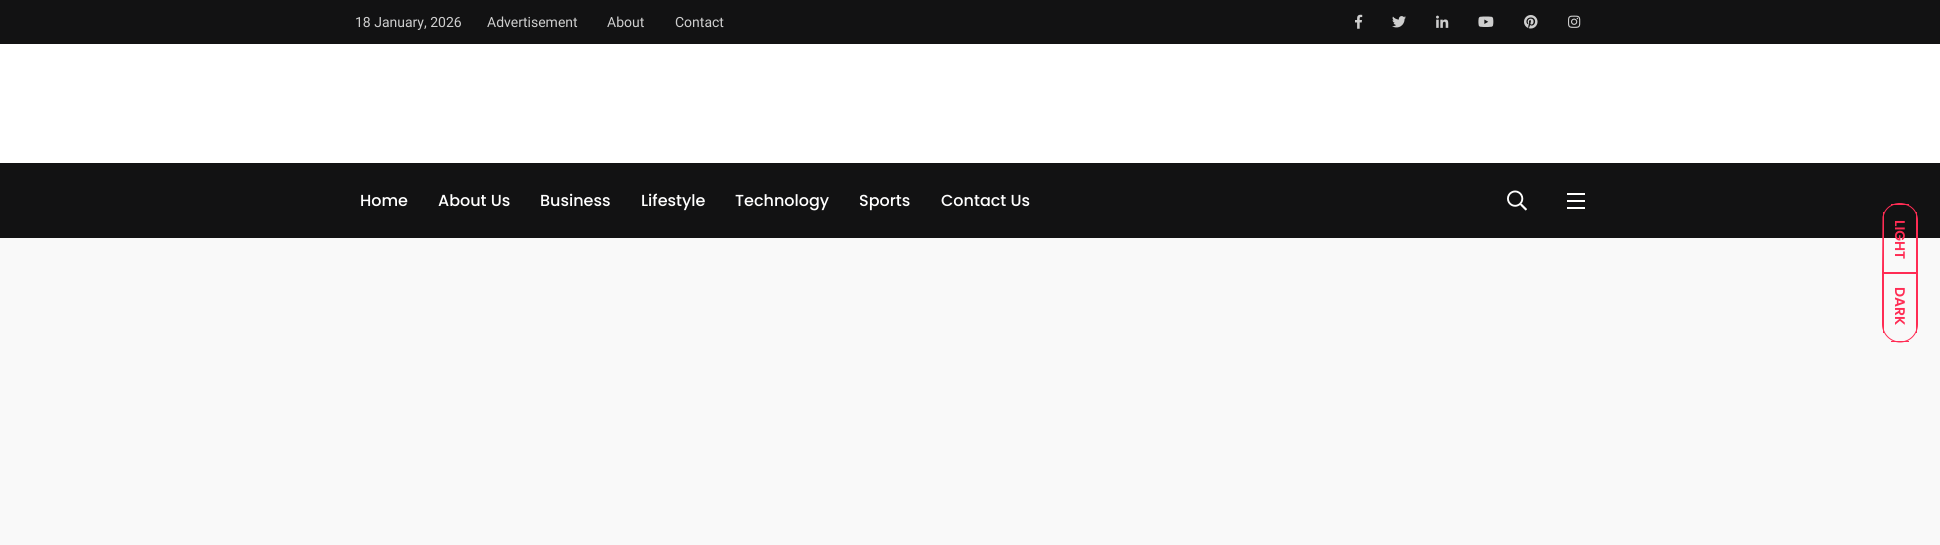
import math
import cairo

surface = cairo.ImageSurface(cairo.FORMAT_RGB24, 1940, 545)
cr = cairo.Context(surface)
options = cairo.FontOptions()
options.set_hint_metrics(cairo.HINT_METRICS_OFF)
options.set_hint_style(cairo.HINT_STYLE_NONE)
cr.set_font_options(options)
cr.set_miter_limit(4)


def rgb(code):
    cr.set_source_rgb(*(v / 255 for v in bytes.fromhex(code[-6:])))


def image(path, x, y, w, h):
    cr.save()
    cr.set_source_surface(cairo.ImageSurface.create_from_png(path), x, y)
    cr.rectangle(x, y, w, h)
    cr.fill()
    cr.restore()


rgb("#ffffff")
cr.paint()
rgb("#121213")
cr.rectangle(0, 0, 1940, 44)
cr.fill()
image("img/1.png", 1355, 14, 8, 15)
image("img/2.png", 1392, 16, 14, 12)
image("img/3.png", 1436, 15, 13, 13)
image("img/4.png", 1478, 16, 16, 11)
image("img/5.png", 1524, 15, 14, 14)
image("img/6.png", 1568, 15, 13, 13)
cr.rectangle(0, 163, 1940, 75)
cr.fill()
image("img/7.png", 1507, 190, 20, 21)
for x, y, w, h, color in [
    (1567, 193, 18, 2, "#ffffff"),
    (1567, 200, 18, 2, "#ffffff"),
    (1567, 207, 18, 2, "#ffffff"),
    (0, 238, 1940, 307, "#f9f9f9"),
]:
    rgb(color)
    cr.rectangle(x, y, w, h)
    cr.fill()
cr.new_path()
cr.move_to(1917.5, 220.5)
cr.line_to(1917.5, 272.5)
cr.line_to(1882.5, 272.5)
cr.line_to(1883, 217)
cr.curve_to(1887, 197, 1917.5, 200, 1917.5, 220.5)
cr.close_path()
rgb("#ff2c54")
cr.set_line_width(1)
cr.stroke()
for x, y, w, h, color in [
    (1916, 212, 1, 61, "#ff2c54"),
    (1883, 212, 1, 61, "#ff2c54"),
    (1891, 204, 18, 1, "#ff2c54"),
]:
    rgb(color)
    cr.rectangle(x, y, w, h)
    cr.fill()
cr.new_path()
cr.move_to(1917.5, 273.5)
cr.line_to(1917.5, 324.5)
cr.curve_to(1917.5, 334, 1910, 342, 1900, 342)
cr.curve_to(1890.5, 342, 1882.5, 334, 1882.5, 324.5)
cr.line_to(1882.5, 273.5)
cr.close_path()
cr.stroke()
for x, y, w, h, color in [
    (1916, 273, 1, 60, "#ff2c54"),
    (1891, 341, 18, 1, "#ff2c54"),
    (1883, 273, 1, 60, "#ff2c54"),
]:
    rgb(color)
    cr.rectangle(x, y, w, h)
    cr.fill()
cr.select_font_face("Roboto")
cr.set_font_size(14)
rgb("#cecece")
for x, y, s in [
    (355, 27, "18 January, 2026"),
    (487, 27, "Advertisement"),
    (607, 27, "About"),
    (675, 27, "Contact"),
]:
    cr.move_to(x, y)
    cr.show_text(s)
cr.select_font_face("Poppins Medium")
cr.set_font_size(16)
rgb("#ffffff")
for x, y, s in [
    (360, 206, "Home"),
    (438, 206, "About Us"),
    (540, 206, "Business"),
    (641, 206, "Lifestyle"),
    (735, 206, "Technology"),
    (859, 206, "Sports"),
    (941, 206, "Contact Us"),
]:
    cr.move_to(x, y)
    cr.show_text(s)
cr.select_font_face("Poppins SemiBold")
cr.set_font_size(14)
rgb("#ff2c54")
cr.save()
cr.translate(1895, 220)
cr.rotate(90 * math.pi / 180)
cr.move_to(0, 0)
cr.show_text("LIGHT")
cr.restore()
cr.save()
cr.translate(1895, 287)
cr.rotate(90 * math.pi / 180)
cr.move_to(0, 0)
cr.show_text("DARK")
cr.restore()
surface.write_to_png("page.png")
